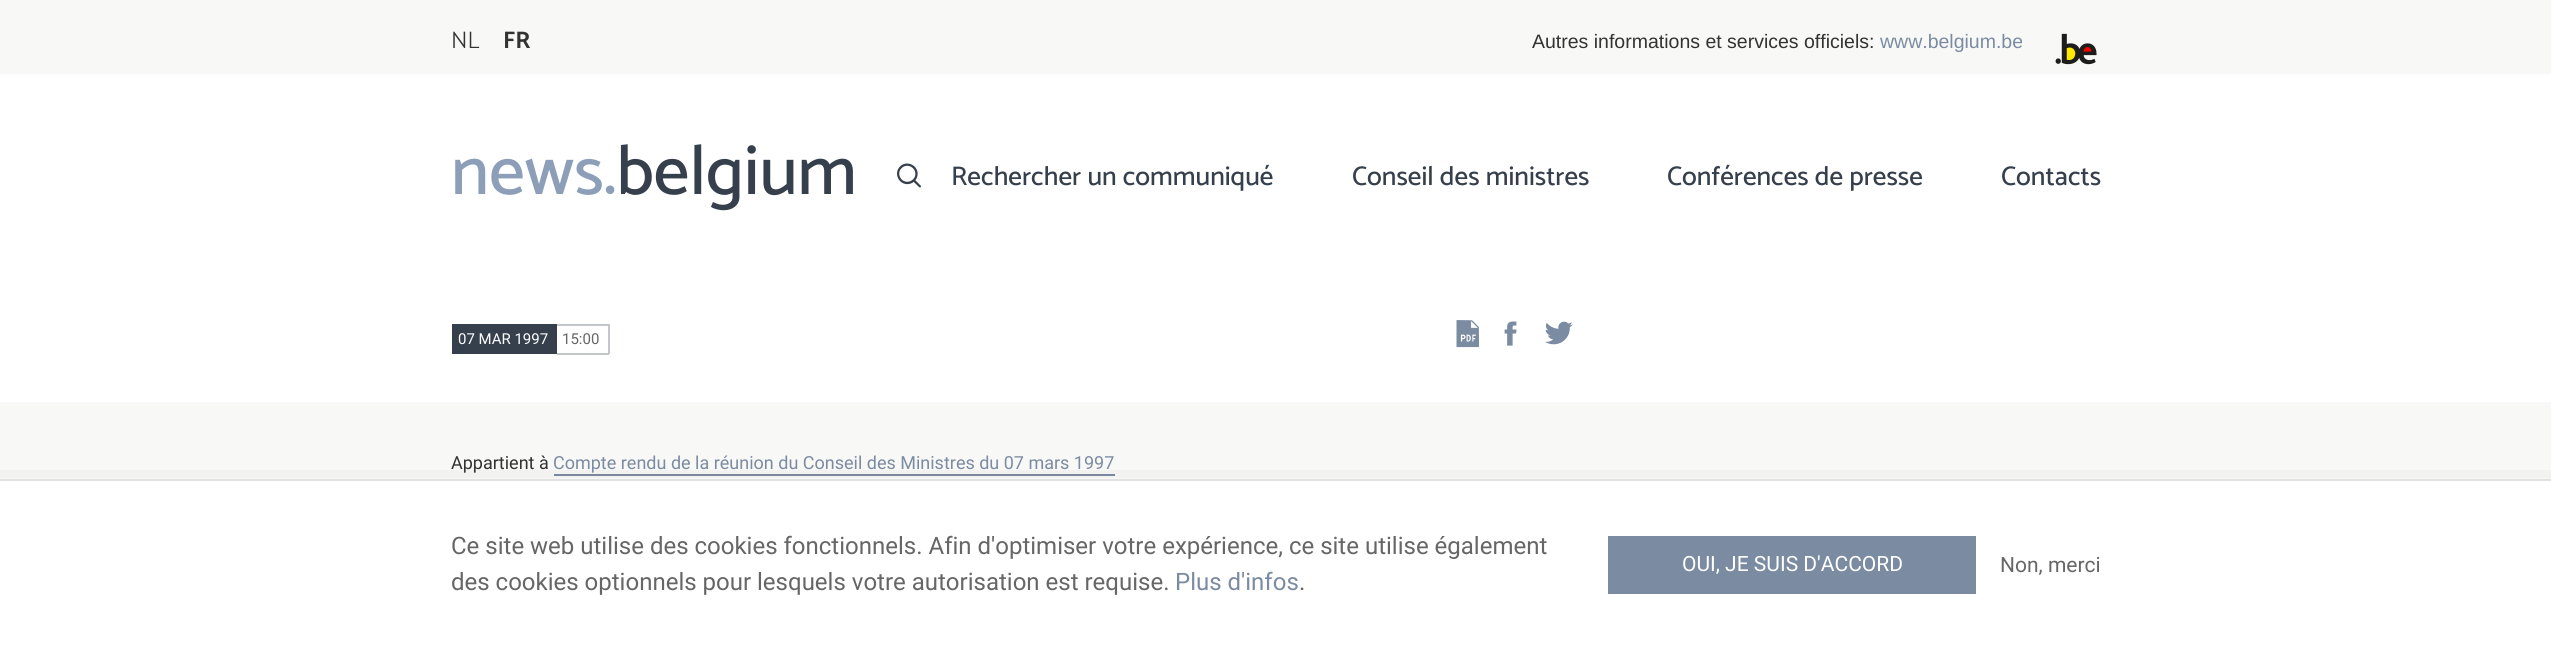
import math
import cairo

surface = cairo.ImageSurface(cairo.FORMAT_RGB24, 2551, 647)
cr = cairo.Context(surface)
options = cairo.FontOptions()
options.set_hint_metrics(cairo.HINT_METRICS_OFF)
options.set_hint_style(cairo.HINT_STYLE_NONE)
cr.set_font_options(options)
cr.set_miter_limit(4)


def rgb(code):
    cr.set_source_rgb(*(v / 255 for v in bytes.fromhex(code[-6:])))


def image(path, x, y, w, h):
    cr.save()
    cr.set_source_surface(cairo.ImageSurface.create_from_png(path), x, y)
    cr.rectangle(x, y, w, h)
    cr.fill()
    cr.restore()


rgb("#f8f8f7")
cr.paint()
image("img/1.png", 2055, 33, 42, 32)
rgb("#ffffff")
cr.rectangle(0, 74, 2551, 328)
cr.fill()
image("img/2.png", 897, 163, 24, 25)
for x, y, w, h, color in [
    (452, 324, 105, 30, "#363f4c"),
    (557, 324, 52, 2, "#c2c5c9"),
    (608, 324, 2, 30, "#c2c5c9"),
    (557, 353, 52, 2, "#c2c5c9"),
]:
    rgb(color)
    cr.rectangle(x, y, w, h)
    cr.fill()
image("img/3.png", 1456, 320, 24, 28)
image("img/4.png", 1504, 321, 13, 25)
image("img/5.png", 1545, 321, 28, 24)
rgb("#7b8ba2")
cr.rectangle(554, 474, 561, 2)
cr.fill()
cr.set_source_rgba(0.2, 0.2, 0.2, 0.03)
cr.new_path()
cr.move_to(-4, 470)
cr.line_to(-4, 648)
cr.line_to(0, 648)
cr.line_to(0, 478)
cr.line_to(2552, 478)
cr.line_to(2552, 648)
cr.line_to(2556, 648)
cr.line_to(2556, 470)
cr.close_path()
cr.fill()
for x, y, w, h, color in [
    (0, 481, 2551, 166, "#ffffff"),
    (0, 479, 2551, 2, "#e1e1e1"),
    (1608, 536, 368, 58, "#7b8ba2"),
]:
    rgb(color)
    cr.rectangle(x, y, w, h)
    cr.fill()
cr.select_font_face("Catamaran Light")
cr.set_font_size(24)
rgb("#333333")
cr.move_to(451, 48)
cr.show_text("NL")
cr.select_font_face("Catamaran", cairo.FONT_SLANT_NORMAL, cairo.FONT_WEIGHT_BOLD)
cr.move_to(503, 48)
cr.show_text("FR")
cr.select_font_face("Liberation Sans")
cr.set_font_size(19.5)
cr.move_to(1532, 48)
cr.show_text("Autres informations et services officiels:")
rgb("#7b8ba2")
cr.move_to(1880, 48)
cr.show_text("www.belgium.be")
cr.select_font_face("Catamaran Medium")
cr.set_font_size(70.5)
rgb("#8c9eb8")
cr.move_to(451, 194)
cr.show_text("news.")
rgb("#363f4c")
cr.move_to(616, 194)
cr.show_text("belgium")
cr.set_font_size(27)
for x, y, s in [
    (951, 185, "Rechercher un communiqué"),
    (1352, 185, "Conseil des ministres"),
    (1667, 185, "Conférences de presse"),
    (2001, 185, "Contacts"),
]:
    cr.move_to(x, y)
    cr.show_text(s)
cr.select_font_face("Roboto")
cr.set_font_size(15)
rgb("#ffffff")
cr.move_to(458, 344)
cr.show_text("07 MAR 1997")
rgb("#666666")
cr.move_to(562, 344)
cr.show_text("15:00")
cr.set_font_size(18)
rgb("#333333")
cr.move_to(451, 469)
cr.show_text("Appartient à")
rgb("#7b8ba2")
cr.move_to(553, 469)
cr.show_text("Compte rendu de la réunion du Conseil des Ministres du 07 mars 1997")
cr.set_font_size(24)
rgb("#666666")
cr.move_to(451, 554)
cr.show_text("Ce site web utilise des cookies fonctionnels. Afin d'optimiser votre expérience, ce site utilise également")
cr.move_to(451, 590)
cr.show_text("des cookies optionnels pour lesquels votre autorisation est requise.")
rgb("#7b8ba2")
cr.move_to(1175, 590)
cr.show_text("Plus d'infos")
rgb("#666666")
cr.move_to(1299, 590)
cr.show_text(".")
cr.set_font_size(21)
rgb("#ffffff")
cr.move_to(1682, 571)
cr.show_text("OUI, JE SUIS D'ACCORD")
rgb("#666666")
cr.move_to(2000, 572)
cr.show_text("Non, merci")
surface.write_to_png("page.png")
